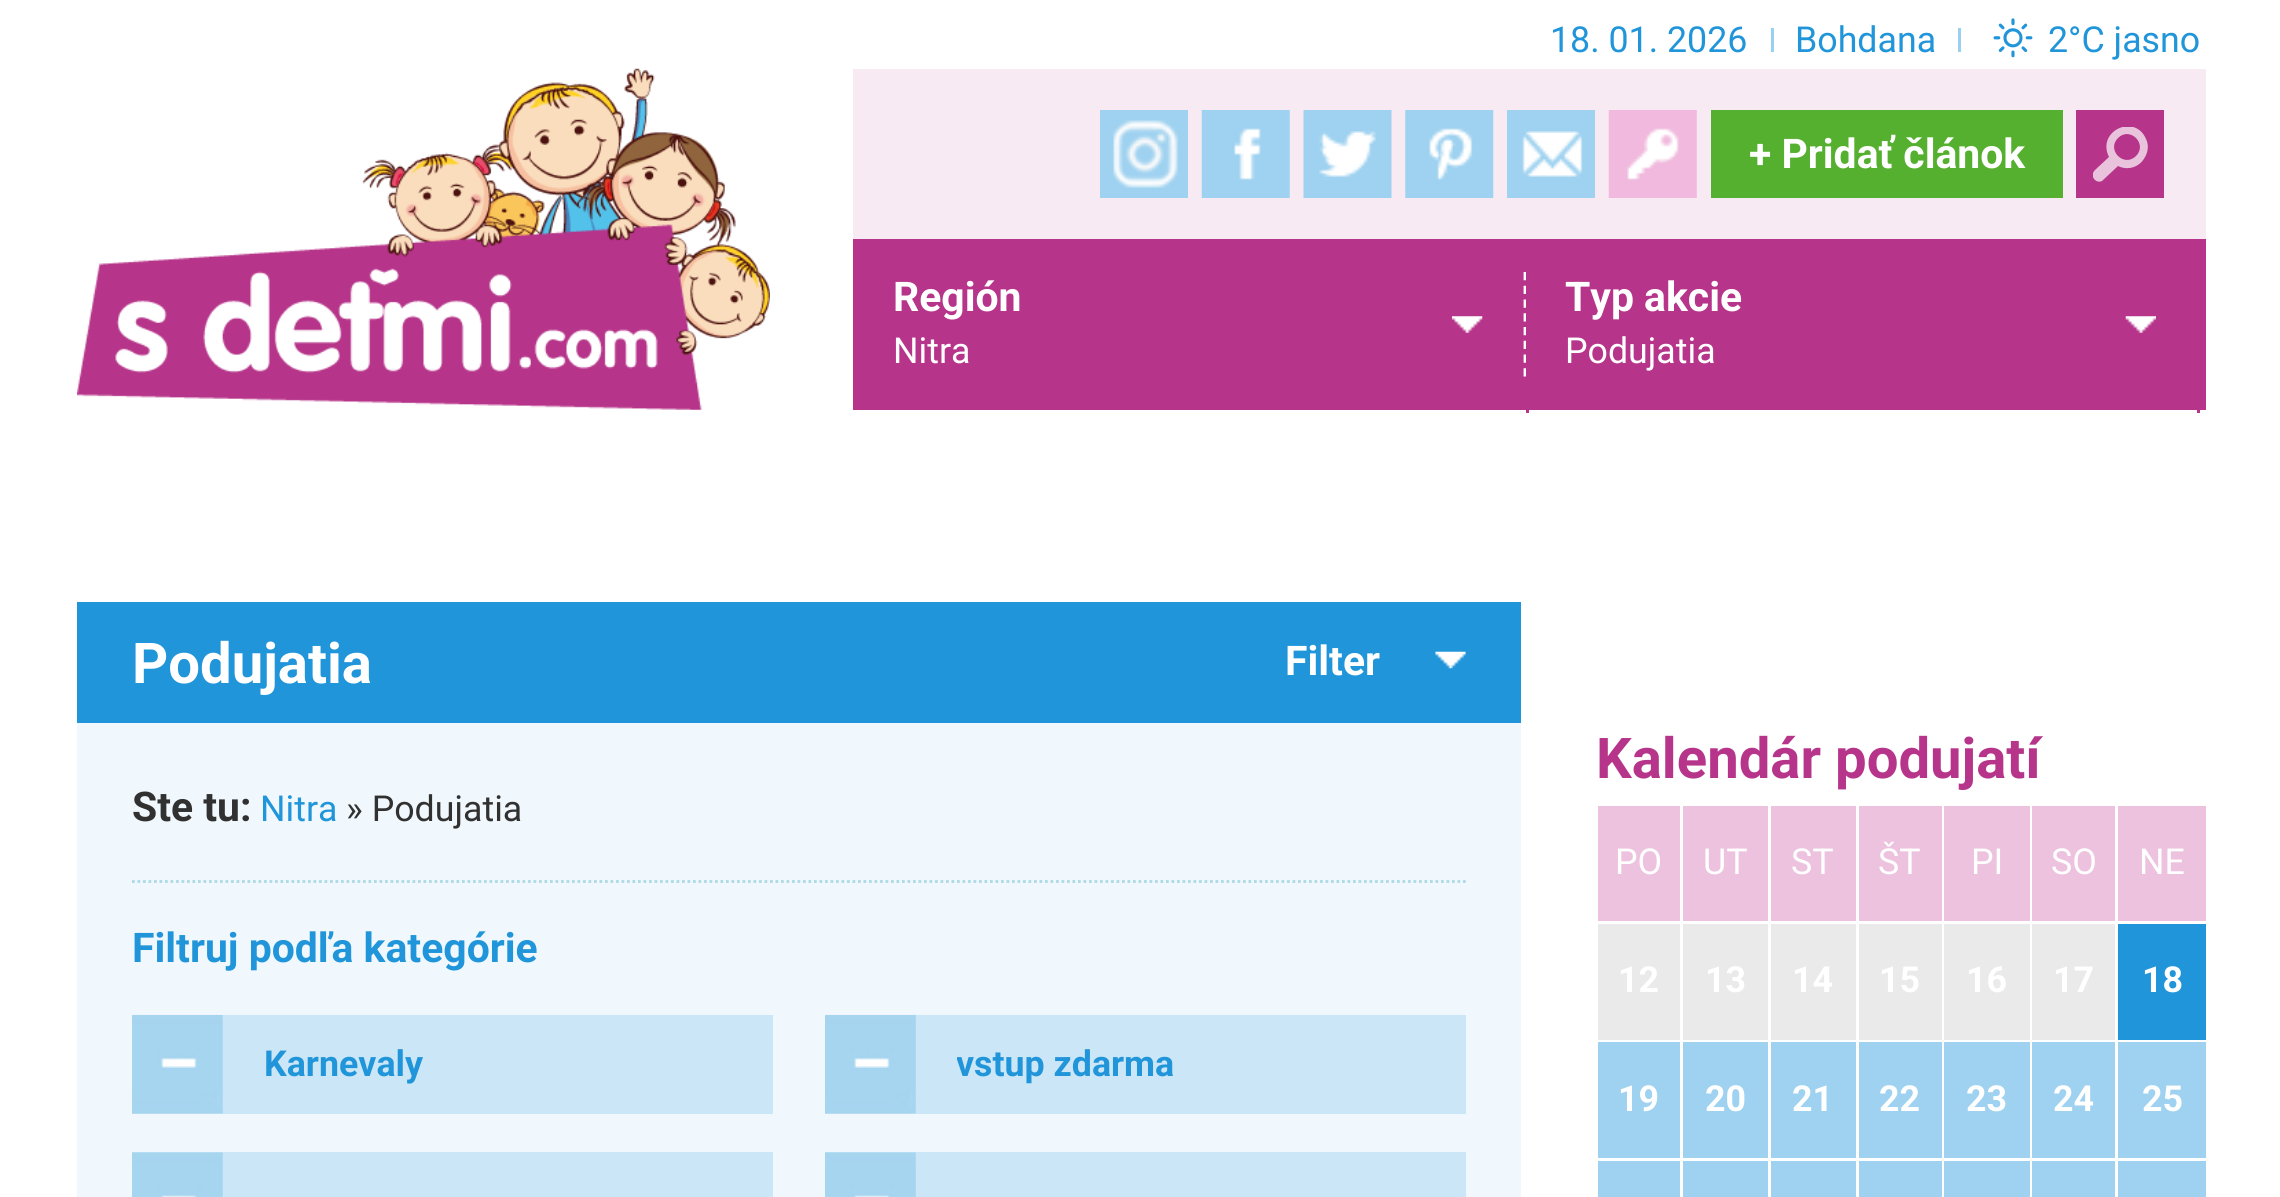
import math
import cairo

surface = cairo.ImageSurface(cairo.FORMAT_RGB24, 2280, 1197)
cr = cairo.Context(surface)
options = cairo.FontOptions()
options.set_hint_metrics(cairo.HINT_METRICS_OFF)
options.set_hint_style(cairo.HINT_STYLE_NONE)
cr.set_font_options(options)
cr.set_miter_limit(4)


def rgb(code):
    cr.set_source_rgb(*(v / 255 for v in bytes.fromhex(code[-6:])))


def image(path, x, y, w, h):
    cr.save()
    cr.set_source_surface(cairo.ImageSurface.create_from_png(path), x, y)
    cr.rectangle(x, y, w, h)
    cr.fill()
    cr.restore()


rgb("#ffffff")
cr.paint()
rgb("#99d0f0")
cr.rectangle(1771, 28, 3, 24)
cr.fill()
cr.rectangle(1958, 28, 3, 24)
cr.fill()
image("img/1.png", 1993, 18, 40, 40)
image("img/2.png", 77, 68, 693, 342)
rgb("#f7eaf3")
cr.rectangle(853, 69, 1353, 170)
cr.fill()
image("img/3.png", 1100, 110, 88, 88)
image("img/4.png", 1201, 110, 89, 88)
image("img/5.png", 1303, 110, 89, 88)
image("img/6.png", 1405, 110, 89, 88)
image("img/7.png", 1507, 110, 88, 88)
image("img/8.png", 1608, 110, 89, 88)
rgb("#55b02f")
cr.rectangle(1711, 110, 352, 88)
cr.fill()
rgb("#b6358b")
cr.rectangle(2076, 110, 88, 88)
cr.fill()
cr.save()
cr.rectangle(2093, 127, 55, 55)
cr.clip()
rgb("#e9c3dc")
cr.new_path()
cr.move_to(2095, 170)
cr.line_to(2109, 157)
cr.curve_to(2096, 131, 2135, 113, 2146, 139)
cr.curve_to(2149, 145, 2148, 152, 2145, 157)
cr.curve_to(2140, 167, 2128, 171, 2118, 166)
cr.line_to(2102, 181)
cr.curve_to(2096, 184, 2089, 176, 2095, 170)
cr.close_path()
cr.move_to(2136, 156)
cr.curve_to(2148, 144, 2130, 126, 2118, 138)
cr.curve_to(2106, 150, 2124, 168, 2136, 156)
cr.close_path()
cr.fill()
cr.restore()
cr.rectangle(853, 239, 1353, 171)
cr.fill()
cr.new_path()
cr.move_to(1525, 272)
cr.line_to(1525, 377)
rgb("#ffffff")
cr.set_line_width(2.8)
cr.set_dash([8.25, 5.5])
cr.stroke()
rgb("#b6358b")
cr.rectangle(1526, 272, 3, 141)
cr.fill()
image("img/9.png", 1452, 316, 31, 17)
cr.rectangle(2197, 410, 3, 3)
cr.fill()
image("img/10.png", 2125, 316, 31, 17)
rgb("#f1f8fd")
cr.rectangle(77, 723, 1444, 474)
cr.fill()
rgb("#2195d9")
cr.rectangle(77, 602, 1444, 121)
cr.fill()
image("img/11.png", 1435, 651, 31, 18)
cr.new_path()
cr.move_to(132, 881.5)
cr.line_to(1466, 881.5)
rgb("#add8e6")
cr.set_dash([2.75, 2.75])
cr.stroke()
rgb("#cbe6f6")
cr.rectangle(132, 1015, 641, 99)
cr.fill()
image("img/12.png", 132, 1014, 91, 100)
cr.rectangle(825, 1015, 641, 99)
cr.fill()
image("img/12.png", 825, 1014, 91, 100)
cr.rectangle(132, 1152, 641, 45)
cr.fill()
image("img/13.png", 132, 1152, 91, 45)
cr.rectangle(825, 1152, 641, 45)
cr.fill()
image("img/13.png", 825, 1152, 91, 45)
for x, y, w, h, color in [
    (1598, 806, 82, 115, "#edc2df"),
    (1683, 806, 85, 115, "#edc2df"),
    (1771, 806, 85, 115, "#edc2df"),
    (1859, 806, 83, 115, "#edc2df"),
    (1944, 806, 86, 115, "#edc2df"),
    (2032, 806, 83, 115, "#edc2df"),
    (2118, 806, 88, 115, "#edc2df"),
    (1598, 924, 82, 116, "#eaeaea"),
    (1683, 924, 85, 116, "#eaeaea"),
    (1771, 924, 85, 116, "#eaeaea"),
    (1859, 924, 83, 116, "#eaeaea"),
    (1944, 924, 86, 116, "#eaeaea"),
    (2032, 924, 83, 116, "#eaeaea"),
    (2118, 924, 88, 116, "#2195d9"),
    (1598, 1042, 82, 116, "#9fd2f0"),
    (1683, 1042, 85, 116, "#9fd2f0"),
    (1771, 1042, 85, 116, "#9fd2f0"),
    (1859, 1042, 83, 116, "#9fd2f0"),
    (1944, 1042, 86, 116, "#9fd2f0"),
    (2032, 1042, 83, 116, "#9fd2f0"),
    (2118, 1042, 88, 116, "#9fd2f0"),
    (1598, 1161, 82, 36, "#9fd2f0"),
    (1683, 1161, 85, 36, "#9fd2f0"),
    (1771, 1161, 85, 36, "#9fd2f0"),
    (1859, 1161, 83, 36, "#9fd2f0"),
    (1944, 1161, 86, 36, "#9fd2f0"),
    (2032, 1161, 83, 36, "#9fd2f0"),
    (2118, 1161, 88, 36, "#9fd2f0"),
]:
    rgb(color)
    cr.rectangle(x, y, w, h)
    cr.fill()
cr.select_font_face("Roboto")
cr.set_font_size(35.75)
rgb("#2195d9")
for x, y, s in [
    (1550, 52, "18. 01. 2026"),
    (1795, 52, "Bohdana"),
    (2048, 52, "2°C jasno"),
]:
    cr.move_to(x, y)
    cr.show_text(s)
cr.select_font_face("Roboto", cairo.FONT_SLANT_NORMAL, cairo.FONT_WEIGHT_BOLD)
cr.set_font_size(40.9)
rgb("#ffffff")
cr.move_to(1749, 168)
cr.show_text("+ Pridať článok")
cr.move_to(893, 311)
cr.show_text("Región")
cr.select_font_face("Roboto")
cr.set_font_size(35.75)
cr.move_to(893, 363)
cr.show_text("Nitra")
cr.select_font_face("Roboto", cairo.FONT_SLANT_NORMAL, cairo.FONT_WEIGHT_BOLD)
cr.set_font_size(40.9)
cr.move_to(1565, 311)
cr.show_text("Typ akcie")
cr.select_font_face("Roboto")
cr.set_font_size(35.75)
cr.move_to(1565, 363)
cr.show_text("Podujatia")
cr.select_font_face("Roboto", cairo.FONT_SLANT_NORMAL, cairo.FONT_WEIGHT_BOLD)
cr.set_font_size(56.25)
cr.move_to(132, 683)
cr.show_text("Podujatia")
cr.set_font_size(40.9)
cr.move_to(1285, 675)
cr.show_text("Filter")
rgb("#313131")
cr.move_to(132, 821)
cr.show_text("Ste tu:")
cr.select_font_face("Roboto")
cr.set_font_size(35.75)
rgb("#2195d9")
cr.move_to(260, 821)
cr.show_text("Nitra")
rgb("#313131")
cr.move_to(346, 821)
cr.show_text("» Podujatia")
cr.select_font_face("Roboto", cairo.FONT_SLANT_NORMAL, cairo.FONT_WEIGHT_BOLD)
cr.set_font_size(40.9)
rgb("#2195d9")
cr.move_to(132, 962)
cr.show_text("Filtruj podľa kategórie")
cr.set_font_size(35.75)
cr.move_to(264, 1076)
cr.show_text("Karnevaly")
cr.save()
cr.rectangle(957, 1042, 468, 44)
cr.clip()
cr.move_to(956, 1076)
cr.show_text("vstup zdarma")
cr.restore()
cr.set_font_size(56.25)
rgb("#b6358b")
cr.move_to(1596, 778)
cr.show_text("Kalendár podujatí")
cr.select_font_face("Roboto")
cr.set_font_size(35.75)
rgb("#ffffff")
for x, y, s in [
    (1615, 874, "PO"),
    (1703, 874, "UT"),
    (1791, 874, "ST"),
    (1878, 874, "ŠT"),
    (1971, 874, "PI"),
    (2051, 874, "SO"),
    (2139, 874, "NE"),
]:
    cr.move_to(x, y)
    cr.show_text(s)
cr.select_font_face("Roboto", cairo.FONT_SLANT_NORMAL, cairo.FONT_WEIGHT_BOLD)
for x, y, s in [
    (1618, 992, "12"),
    (1705, 992, "13"),
    (1792, 992, "14"),
    (1879, 992, "15"),
    (1966, 992, "16"),
    (2053, 992, "17"),
    (2142, 992, "18"),
    (1618, 1111, "19"),
    (1705, 1111, "20"),
    (1792, 1111, "21"),
    (1879, 1111, "22"),
    (1966, 1111, "23"),
    (2053, 1111, "24"),
    (2142, 1111, "25"),
]:
    cr.move_to(x, y)
    cr.show_text(s)
surface.write_to_png("page.png")
